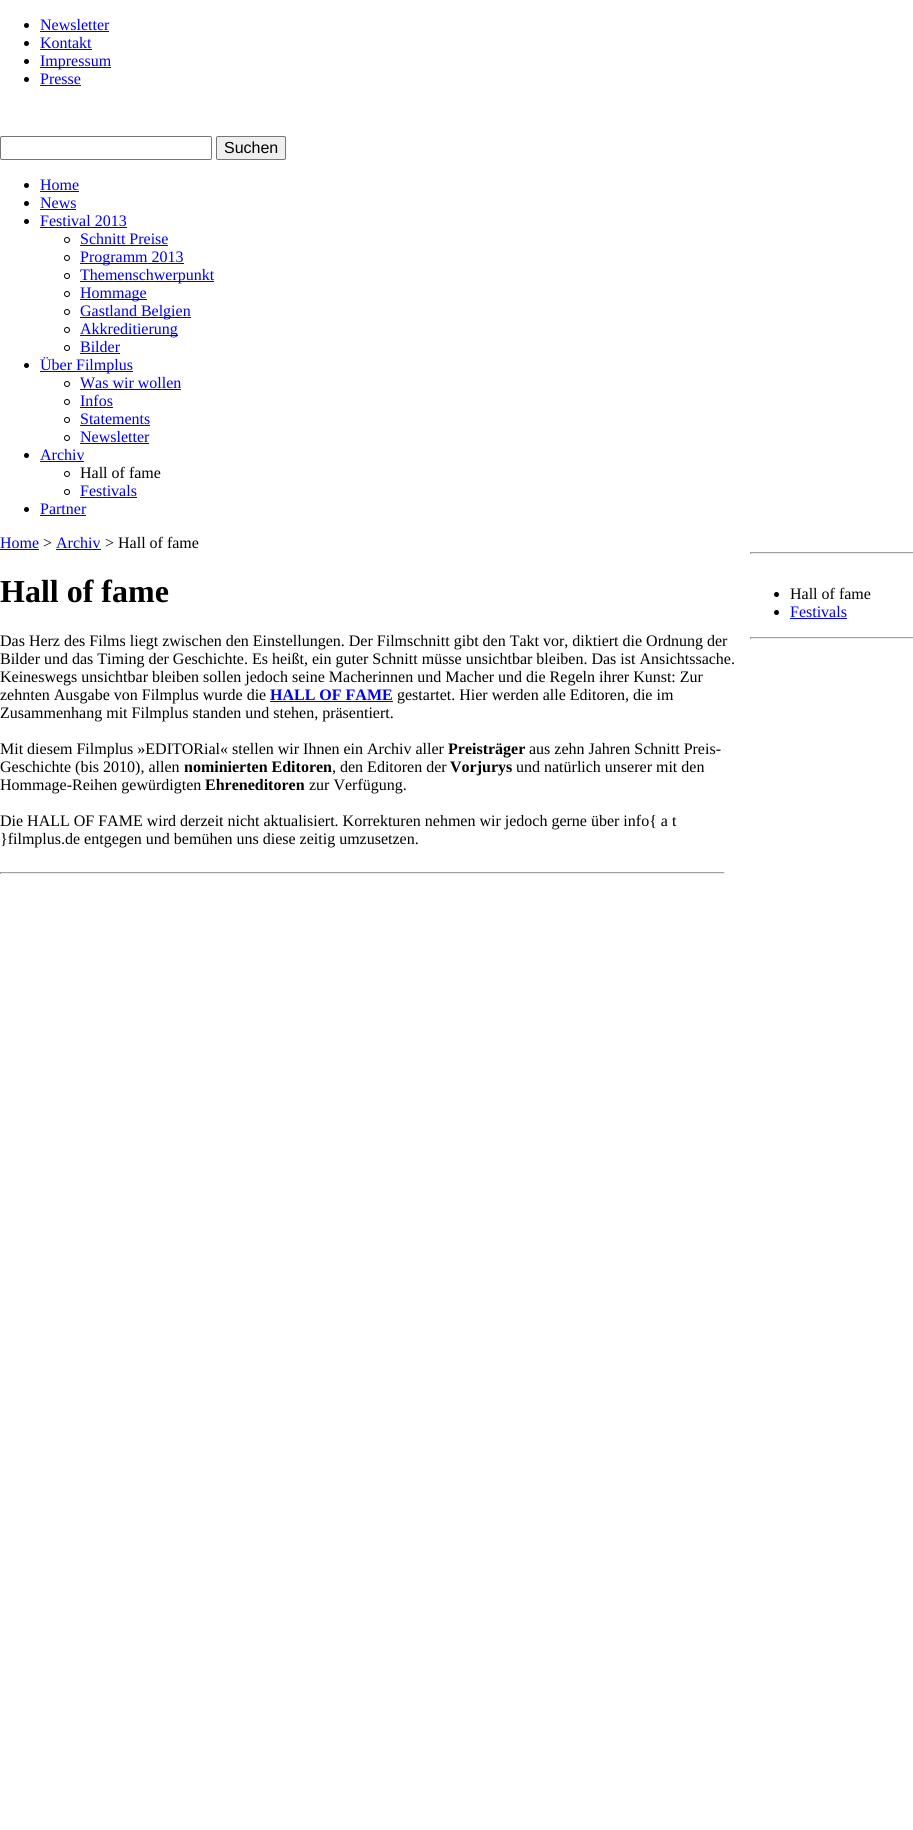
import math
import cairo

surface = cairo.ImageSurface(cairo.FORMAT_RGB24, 913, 1830)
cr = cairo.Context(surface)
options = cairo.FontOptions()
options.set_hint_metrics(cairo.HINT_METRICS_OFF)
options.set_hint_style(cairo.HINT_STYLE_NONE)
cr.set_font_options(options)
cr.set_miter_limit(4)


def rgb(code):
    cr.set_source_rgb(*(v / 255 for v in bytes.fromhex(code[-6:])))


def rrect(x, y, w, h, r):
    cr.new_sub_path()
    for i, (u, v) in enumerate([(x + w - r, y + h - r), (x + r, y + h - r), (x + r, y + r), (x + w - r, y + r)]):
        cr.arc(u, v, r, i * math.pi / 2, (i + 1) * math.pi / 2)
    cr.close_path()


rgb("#ffffff")
cr.paint()
rgb("#000000")
cr.arc(26.5, 25.5, 2.5, 0, 2 * math.pi)
cr.fill()
rgb("#0000ee")
cr.rectangle(40, 31, 69, 1)
cr.fill()
rgb("#000000")
cr.arc(26.5, 43.5, 2.5, 0, 2 * math.pi)
cr.fill()
rgb("#0000ee")
cr.rectangle(40, 49, 52, 1)
cr.fill()
rgb("#000000")
cr.arc(26.5, 61.5, 2.5, 0, 2 * math.pi)
cr.fill()
rgb("#0000ee")
cr.rectangle(40, 67, 71, 1)
cr.fill()
rgb("#000000")
cr.arc(26.5, 79.5, 2.5, 0, 2 * math.pi)
cr.fill()
rgb("#0000ee")
cr.rectangle(40, 85, 41, 1)
cr.fill()
rrect(0.5, 136.5, 211, 23, 1.5)
rgb("#767676")
cr.set_line_width(1)
cr.stroke()
rgb("#efefef")
rrect(216.5, 136.5, 69, 23, 1.5)
cr.fill_preserve()
rgb("#767676")
cr.stroke()
rgb("#000000")
cr.arc(26.5, 185.5, 2.5, 0, 2 * math.pi)
cr.fill()
rgb("#0000ee")
cr.rectangle(40, 191, 39, 1)
cr.fill()
rgb("#000000")
cr.arc(26.5, 203.5, 2.5, 0, 2 * math.pi)
cr.fill()
rgb("#0000ee")
cr.rectangle(40, 209, 36, 1)
cr.fill()
rgb("#000000")
cr.arc(26.5, 221.5, 2.5, 0, 2 * math.pi)
cr.fill()
rgb("#0000ee")
cr.rectangle(40, 227, 87, 1)
cr.fill()
cr.arc(67, 240, 2.5, 0, 2 * math.pi)
rgb("#000000")
cr.stroke()
rgb("#0000ee")
cr.rectangle(80, 245, 88, 1)
cr.fill()
cr.arc(67, 258, 2.5, 0, 2 * math.pi)
rgb("#000000")
cr.stroke()
rgb("#0000ee")
cr.rectangle(80, 263, 104, 1)
cr.fill()
cr.arc(67, 276, 2.5, 0, 2 * math.pi)
rgb("#000000")
cr.stroke()
rgb("#0000ee")
cr.rectangle(80, 281, 134, 1)
cr.fill()
cr.arc(67, 294, 2.5, 0, 2 * math.pi)
rgb("#000000")
cr.stroke()
rgb("#0000ee")
cr.rectangle(80, 299, 67, 1)
cr.fill()
cr.arc(67, 312, 2.5, 0, 2 * math.pi)
rgb("#000000")
cr.stroke()
rgb("#0000ee")
cr.rectangle(80, 317, 111, 1)
cr.fill()
cr.arc(67, 330, 2.5, 0, 2 * math.pi)
rgb("#000000")
cr.stroke()
rgb("#0000ee")
cr.rectangle(80, 335, 98, 1)
cr.fill()
cr.arc(67, 348, 2.5, 0, 2 * math.pi)
rgb("#000000")
cr.stroke()
rgb("#0000ee")
cr.rectangle(80, 353, 40, 1)
cr.fill()
rgb("#000000")
cr.arc(26.5, 365.5, 2.5, 0, 2 * math.pi)
cr.fill()
rgb("#0000ee")
cr.rectangle(40, 371, 93, 1)
cr.fill()
cr.arc(67, 384, 2.5, 0, 2 * math.pi)
rgb("#000000")
cr.stroke()
rgb("#0000ee")
cr.rectangle(80, 389, 101, 1)
cr.fill()
cr.arc(67, 402, 2.5, 0, 2 * math.pi)
rgb("#000000")
cr.stroke()
rgb("#0000ee")
cr.rectangle(80, 407, 33, 1)
cr.fill()
cr.arc(67, 420, 2.5, 0, 2 * math.pi)
rgb("#000000")
cr.stroke()
rgb("#0000ee")
cr.rectangle(80, 425, 70, 1)
cr.fill()
cr.arc(67, 438, 2.5, 0, 2 * math.pi)
rgb("#000000")
cr.stroke()
rgb("#0000ee")
cr.rectangle(80, 443, 69, 1)
cr.fill()
rgb("#000000")
cr.arc(26.5, 455.5, 2.5, 0, 2 * math.pi)
cr.fill()
rgb("#0000ee")
cr.rectangle(40, 461, 44, 1)
cr.fill()
cr.arc(67, 474, 2.5, 0, 2 * math.pi)
rgb("#000000")
cr.stroke()
cr.arc(67, 492, 2.5, 0, 2 * math.pi)
cr.stroke()
rgb("#0000ee")
cr.rectangle(80, 497, 57, 1)
cr.fill()
rgb("#000000")
cr.arc(26.5, 509.5, 2.5, 0, 2 * math.pi)
cr.fill()
for x, y, w, h, color in [
    (40, 515, 46, 1, "#0000ee"),
    (0, 549, 39, 1, "#0000ee"),
    (56, 549, 45, 1, "#0000ee"),
    (270, 701, 123, 1, "#0000ee"),
    (750, 552, 163, 1, "#9f9f9f"),
    (750, 553, 163, 1, "#eeeeee"),
    (750, 552, 1, 2, "#9f9f9f"),
]:
    rgb(color)
    cr.rectangle(x, y, w, h)
    cr.fill()
rgb("#000000")
cr.arc(776.5, 594.5, 2.5, 0, 2 * math.pi)
cr.fill()
cr.arc(776.5, 612.5, 2.5, 0, 2 * math.pi)
cr.fill()
for x, y, w, h, color in [
    (790, 618, 57, 1, "#0000ee"),
    (750, 637, 163, 1, "#9f9f9f"),
    (750, 638, 163, 1, "#eeeeee"),
    (750, 637, 1, 2, "#9f9f9f"),
    (0, 872, 725, 1, "#9f9f9f"),
    (724, 872, 1, 2, "#eeeeee"),
    (0, 873, 725, 1, "#eeeeee"),
    (0, 872, 1, 2, "#9f9f9f"),
]:
    rgb(color)
    cr.rectangle(x, y, w, h)
    cr.fill()
cr.select_font_face("Liberation Serif")
cr.set_font_size(16)
rgb("#0000ee")
for x, y, s in [
    (40, 30, "Newsletter"),
    (40, 48, "Kontakt"),
    (40, 66, "Impressum"),
    (40, 84, "Presse"),
]:
    cr.move_to(x, y)
    cr.show_text(s)
cr.select_font_face("Liberation Sans")
rgb("#000000")
cr.move_to(224, 153)
cr.show_text("Suchen")
cr.select_font_face("Liberation Serif")
rgb("#0000ee")
for x, y, s in [
    (40, 190, "Home"),
    (40, 208, "News"),
    (40, 226, "Festival 2013"),
    (80, 244, "Schnitt Preise"),
    (80, 262, "Programm 2013"),
    (80, 280, "Themenschwerpunkt"),
    (80, 298, "Hommage"),
    (80, 316, "Gastland Belgien"),
    (80, 334, "Akkreditierung"),
    (80, 352, "Bilder"),
    (40, 370, "Über Filmplus"),
    (80, 388, "Was wir wollen"),
    (80, 406, "Infos"),
    (80, 424, "Statements"),
    (80, 442, "Newsletter"),
    (40, 460, "Archiv"),
]:
    cr.move_to(x, y)
    cr.show_text(s)
rgb("#000000")
cr.move_to(80, 478)
cr.show_text("Hall of fame")
rgb("#0000ee")
for x, y, s in [
    (80, 496, "Festivals"),
    (40, 514, "Partner"),
    (0, 548, "Home"),
]:
    cr.move_to(x, y)
    cr.show_text(s)
rgb("#000000")
cr.move_to(43, 548)
cr.show_text(">")
rgb("#0000ee")
cr.move_to(56, 548)
cr.show_text("Archiv")
rgb("#000000")
cr.move_to(105, 548)
cr.show_text("> Hall of fame")
cr.select_font_face("Liberation Serif", cairo.FONT_SLANT_NORMAL, cairo.FONT_WEIGHT_BOLD)
cr.set_font_size(32)
cr.move_to(0, 602)
cr.show_text("Hall of fame")
cr.select_font_face("Liberation Serif")
cr.set_font_size(16)
for x, y, s in [
    (0, 646, "Das Herz des Films liegt zwischen den Einstellungen. Der Filmschnitt gibt den Takt vor, diktiert die Ordnung der"),
    (0, 664, "Bilder und das Timing der Geschichte. Es heißt, ein guter Schnitt müsse unsichtbar bleiben. Das ist Ansichtssache."),
    (0, 682, "Keineswegs unsichtbar bleiben sollen jedoch seine Macherinnen und Macher und die Regeln ihrer Kunst: Zur"),
    (0, 700, "zehnten Ausgabe von Filmplus wurde die"),
]:
    cr.move_to(x, y)
    cr.show_text(s)
cr.select_font_face("Liberation Serif", cairo.FONT_SLANT_NORMAL, cairo.FONT_WEIGHT_BOLD)
rgb("#0000ee")
cr.move_to(270, 700)
cr.show_text("HALL OF FAME")
cr.select_font_face("Liberation Serif")
rgb("#000000")
for x, y, s in [
    (397, 700, "gestartet. Hier werden alle Editoren, die im"),
    (0, 718, "Zusammenhang mit Filmplus standen und stehen, präsentiert."),
    (0, 754, "Mit diesem Filmplus »EDITORial« stellen wir Ihnen ein Archiv aller"),
]:
    cr.move_to(x, y)
    cr.show_text(s)
cr.select_font_face("Liberation Serif", cairo.FONT_SLANT_NORMAL, cairo.FONT_WEIGHT_BOLD)
cr.move_to(448, 754)
cr.show_text("Preisträger")
cr.select_font_face("Liberation Serif")
cr.move_to(529, 754)
cr.show_text("aus zehn Jahren Schnitt Preis-")
cr.move_to(0, 772)
cr.show_text("Geschichte (bis 2010), allen")
cr.select_font_face("Liberation Serif", cairo.FONT_SLANT_NORMAL, cairo.FONT_WEIGHT_BOLD)
cr.move_to(184, 772)
cr.show_text("nominierten Editoren")
cr.select_font_face("Liberation Serif")
cr.move_to(332, 772)
cr.show_text(", den Editoren der")
cr.select_font_face("Liberation Serif", cairo.FONT_SLANT_NORMAL, cairo.FONT_WEIGHT_BOLD)
cr.move_to(450, 772)
cr.show_text("Vorjurys")
cr.select_font_face("Liberation Serif")
cr.move_to(516, 772)
cr.show_text("und natürlich unserer mit den")
cr.move_to(0, 790)
cr.show_text("Hommage-Reihen gewürdigten")
cr.select_font_face("Liberation Serif", cairo.FONT_SLANT_NORMAL, cairo.FONT_WEIGHT_BOLD)
cr.move_to(205, 790)
cr.show_text("Ehreneditoren")
cr.select_font_face("Liberation Serif")
for x, y, s in [
    (309, 790, "zur Verfügung."),
    (0, 826, "Die HALL OF FAME wird derzeit nicht aktualisiert. Korrekturen nehmen wir jedoch gerne über info{ a t"),
    (0, 844, "}filmplus.de entgegen und bemühen uns diese zeitig umzusetzen."),
    (790, 599, "Hall of fame"),
]:
    cr.move_to(x, y)
    cr.show_text(s)
rgb("#0000ee")
cr.move_to(790, 617)
cr.show_text("Festivals")
surface.write_to_png("page.png")
